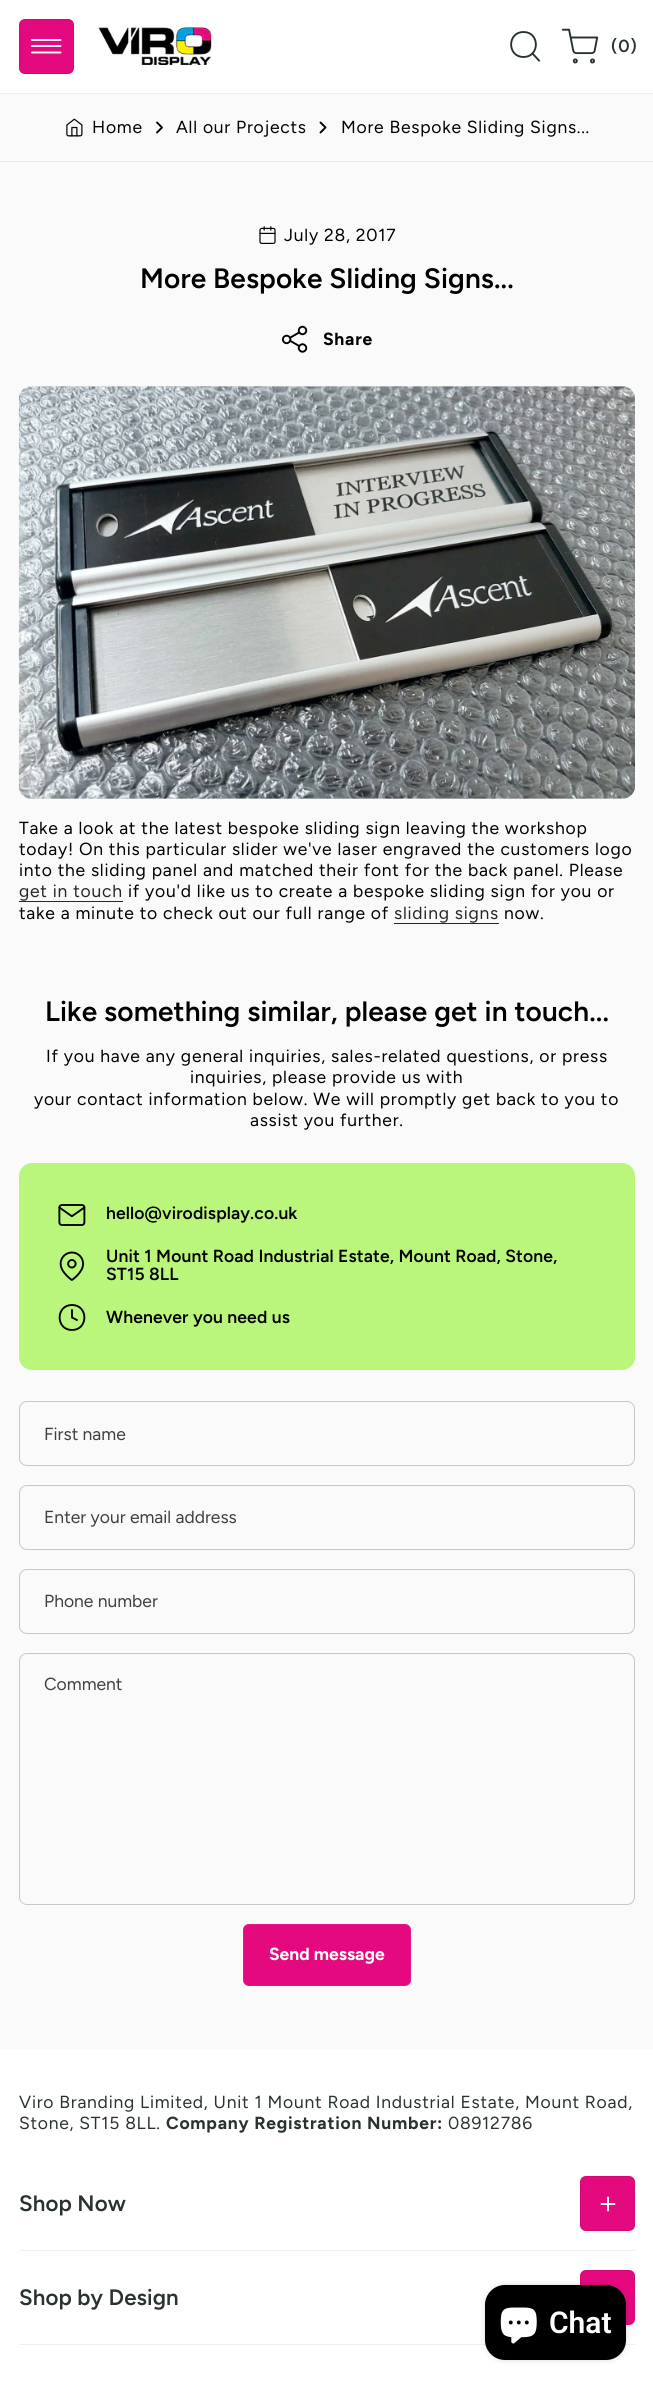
import math
import cairo

surface = cairo.ImageSurface(cairo.FORMAT_RGB24, 653, 2386)
cr = cairo.Context(surface)
options = cairo.FontOptions()
options.set_hint_metrics(cairo.HINT_METRICS_OFF)
options.set_hint_style(cairo.HINT_STYLE_NONE)
cr.set_font_options(options)
cr.set_miter_limit(4)


def rgb(code):
    cr.set_source_rgb(*(v / 255 for v in bytes.fromhex(code[-6:])))


def tracked(x, y, s, letter, word):
    cr.move_to(x, y)
    for ch in s:
        cr.show_text(ch)
        cr.rel_move_to(letter + word * (ch == ' '), 0)


def rrect(x, y, w, h, r):
    cr.new_sub_path()
    for i, (u, v) in enumerate([(x + w - r, y + h - r), (x + r, y + h - r), (x + r, y + r), (x + w - r, y + r)]):
        cr.arc(u, v, r, i * math.pi / 2, (i + 1) * math.pi / 2)
    cr.close_path()


def soft_shadow(x, y, w, h, r, blur, alpha):
    cr.push_group_with_content(cairo.CONTENT_ALPHA)
    cr.set_operator(cairo.OPERATOR_SOURCE)
    for i in range(15, -16, -2):
        e = blur * i / 6
        if min(w, h) + 2 * e > 0:
            cr.set_source_rgba(0, 0, 0, alpha * math.erfc((i - 1) / 8.5) / 2)
            rrect(x - e, y - e, w + 2 * e, h + 2 * e, max(0, min(r + e + blur * .6, min(w, h) / 2 + e)))
            cr.fill()
    cr.mask(cr.pop_group())


def image(path, x, y, w, h):
    cr.save()
    cr.set_source_surface(cairo.ImageSurface.create_from_png(path), x, y)
    cr.rectangle(x, y, w, h)
    cr.fill()
    cr.restore()


rgb("#fafafa")
cr.paint()
rgb("#ffffff")
cr.rectangle(0, 0, 653, 93)
cr.fill()
rgb("#eeefee")
cr.rectangle(0, 93, 653, 1)
cr.fill()
rgb("#e5097f")
rrect(19, 19, 55, 55, 6)
cr.fill()
rrect(19.5, 19.5, 54, 54, 5.5)
cr.set_source_rgba(0, 0, 0, 0.08)
cr.set_line_width(1)
cr.stroke()
cr.new_path()
cr.move_to(60.5, 46)
cr.line_to(32, 46)
cr.move_to(60.5, 40)
cr.line_to(32, 40)
cr.move_to(60.5, 52.5)
cr.line_to(32, 52.5)
rgb("#ffffff")
cr.set_line_width(1.9)
cr.set_line_cap(cairo.LINE_CAP_ROUND)
cr.set_line_join(cairo.LINE_JOIN_ROUND)
cr.stroke()
image("img/1.png", 98, 27, 114, 38)
cr.new_path()
cr.move_to(523.5, 57)
cr.curve_to(540, 57, 540, 32, 523.5, 32)
cr.curve_to(507, 32, 507, 57, 523.5, 57)
cr.close_path()
rgb("#283230")
cr.stroke()
cr.new_path()
cr.move_to(539, 60.5)
cr.line_to(532.5, 53.5)
cr.set_line_cap(cairo.LINE_CAP_SQUARE)
cr.stroke()
image("img/2.png", 561, 28, 38, 36)
rgb("#e6e6e6")
cr.rectangle(0, 161, 653, 1)
cr.fill()
image("img/3.png", 66, 118, 17, 19)
cr.new_path()
cr.move_to(157, 132.5)
cr.line_to(162, 127.5)
cr.line_to(157, 122.5)
rgb("#000000")
cr.set_line_cap(cairo.LINE_CAP_ROUND)
cr.stroke()
cr.new_path()
cr.move_to(320.5, 132.5)
cr.line_to(325.5, 127.5)
cr.line_to(320.5, 122.5)
cr.stroke()
image("img/4.png", 259, 226, 17, 18)
image("img/5.png", 281, 325, 27, 28)
rgb("#e0e0e0")
rrect(19, 386, 616, 413, 13)
cr.fill()
image("img/6.png", 18, 386, 617, 413)
rgb("#262626")
cr.rectangle(19, 901, 104, 1)
cr.fill()
cr.rectangle(394, 923, 105, 1)
cr.fill()
rgb("#baf67c")
rrect(19, 1163, 616, 207, 13)
cr.fill()
image("img/7.png", 58, 1204, 28, 22)
image("img/8.png", 59, 1251, 26, 30)
cr.new_path()
cr.move_to(72, 1330)
cr.curve_to(88.5, 1330, 88.5, 1305, 72, 1305)
cr.curve_to(55.5, 1305, 55.5, 1330, 72, 1330)
cr.close_path()
cr.move_to(72, 1310)
cr.line_to(72, 1317.5)
cr.line_to(77, 1320)
rgb("#000000")
cr.stroke()
rrect(19.5, 1401.5, 615, 64, 7.5)
rgb("#c8c8c8")
cr.set_line_width(1)
cr.set_line_cap(cairo.LINE_CAP_BUTT)
cr.set_line_join(cairo.LINE_JOIN_MITER)
cr.stroke()
rrect(19.5, 1485.5, 615, 64, 7.5)
cr.stroke()
rrect(19.5, 1569.5, 615, 64, 7.5)
cr.stroke()
rrect(19.5, 1653.5, 615, 251, 7.5)
cr.stroke()
rgb("#e5097f")
rrect(243, 1924, 168, 62, 6)
cr.fill()
rrect(243.5, 1924.5, 167, 61, 5.5)
cr.set_source_rgba(0.565, 0.898, 0.984, 0.08)
cr.stroke()
rgb("#ffffff")
cr.rectangle(0, 2049, 653, 337)
cr.fill()
rgb("#eeefee")
cr.rectangle(19, 2250, 616, 1)
cr.fill()
rgb("#e5097f")
rrect(580, 2176, 55, 55, 6)
cr.fill()
rrect(580.5, 2176.5, 54, 54, 5.5)
cr.set_source_rgba(0, 0, 0, 0.08)
cr.stroke()
cr.new_path()
cr.move_to(608, 2197.5)
cr.line_to(608, 2210.5)
cr.move_to(601.5, 2204)
cr.line_to(614.5, 2204)
rgb("#ffffff")
cr.set_line_width(1.9)
cr.set_line_cap(cairo.LINE_CAP_ROUND)
cr.set_line_join(cairo.LINE_JOIN_ROUND)
cr.stroke()
rgb("#eeefee")
cr.rectangle(19, 2344, 616, 1)
cr.fill()
rgb("#e5097f")
rrect(580, 2270, 55, 55, 6)
cr.fill()
rrect(580.5, 2270.5, 54, 54, 5.5)
cr.set_source_rgba(0, 0, 0, 0.08)
cr.set_line_width(1)
cr.set_line_cap(cairo.LINE_CAP_BUTT)
cr.set_line_join(cairo.LINE_JOIN_MITER)
cr.stroke()
rgb("#000000")
soft_shadow(485, 2285, 141, 75, 20, 3, 0.15)
rgb("#000000")
rrect(485, 2285, 141, 75, 20)
cr.fill()
image("img/9.png", 500, 2307, 37, 37)
cr.select_font_face("Figtree SemiBold")
cr.set_font_size(17.5)
rgb("#283230")
tracked(611, 52, "(0)", 0.75, 0)
cr.select_font_face("Figtree")
rgb("#000000")
for x, y, s in [
    (92, 133, "Home"),
    (176, 133, "All our Projects"),
    (341, 133, "More Bespoke Sliding Signs..."),
    (284, 241, "July 28, 2017"),
]:
    tracked(x, y, s, 0.75, 0)
cr.select_font_face("Figtree SemiBold")
cr.set_font_size(28)
tracked(140, 288, "More Bespoke Sliding Signs...", 0.12, 0)
cr.select_font_face("Figtree", cairo.FONT_SLANT_NORMAL, cairo.FONT_WEIGHT_BOLD)
cr.set_font_size(17.5)
tracked(323, 345, "Share", 0.75, 0)
cr.select_font_face("Figtree")
for x, y, s in [
    (19, 834, "Take a look at the latest bespoke sliding sign leaving the workshop"),
    (19, 855, "today! On this particular slider we've laser engraved the customers logo"),
    (19, 876, "into the sliding panel and matched their font for the back panel. Please"),
]:
    tracked(x, y, s, 0.75, 0)
rgb("#262626")
tracked(19, 897, "get in touch", 0.75, 0)
rgb("#000000")
tracked(128, 897, "if you'd like us to create a bespoke sliding sign for you or", 0.75, 0)
tracked(19, 919, "take a minute to check out our full range of", 0.75, 0)
rgb("#262626")
tracked(394, 919, "sliding signs", 0.75, 0)
rgb("#000000")
tracked(504, 919, "now.", 0.75, 0)
cr.select_font_face("Figtree SemiBold")
cr.set_font_size(28)
tracked(45, 1021, "Like something similar, please get in touch...", 0.12, 0)
cr.select_font_face("Figtree")
cr.set_font_size(17.5)
for x, y, s in [
    (46, 1062, "If you have any general inquiries, sales-related questions, or press"),
    (190, 1083, "inquiries, please provide us with"),
    (34, 1105, "your contact information below. We will promptly get back to you to"),
    (250, 1126, "assist you further."),
]:
    tracked(x, y, s, 0.75, 0)
cr.select_font_face("Figtree SemiBold")
for x, y, s in [
    (106, 1219, "hello@virodisplay.co.uk"),
    (106, 1262, "Unit 1 Mount Road Industrial Estate, Mount Road, Stone,"),
    (106, 1280, "ST15 8LL"),
    (106, 1323, "Whenever you need us"),
]:
    tracked(x, y, s, 0.12, 0)
cr.select_font_face("Figtree")
rgb("#3f3f3f")
for x, y, s in [
    (44, 1440, "First name"),
    (44, 1523, "Enter your email address"),
    (44, 1607, "Phone number"),
    (44, 1690, "Comment"),
]:
    cr.move_to(x, y)
    cr.show_text(s)
cr.select_font_face("Figtree", cairo.FONT_SLANT_NORMAL, cairo.FONT_WEIGHT_BOLD)
rgb("#ffffff")
cr.move_to(269, 1960)
cr.show_text("Send message")
cr.select_font_face("Figtree")
rgb("#283230")
tracked(19, 2108, "Viro Branding Limited, Unit 1 Mount Road Industrial Estate, Mount Road,", 0.75, 0)
tracked(19, 2129, "Stone, ST15 8LL.", 0.75, 0)
cr.select_font_face("Figtree", cairo.FONT_SLANT_NORMAL, cairo.FONT_WEIGHT_BOLD)
tracked(166, 2129, "Company Registration Number:", 0.75, 0)
cr.select_font_face("Figtree")
tracked(448, 2129, "08912786", 0.75, 0)
cr.select_font_face("Figtree SemiBold")
cr.set_font_size(22.25)
tracked(19, 2211, "Shop Now", 0.12, 0)
tracked(19, 2305, "Shop by Design", 0.12, 0)
cr.select_font_face("Roboto SemiBold")
cr.set_font_size(30)
rgb("#ffffff")
cr.move_to(549, 2333)
cr.show_text("Chat")
surface.write_to_png("page.png")
